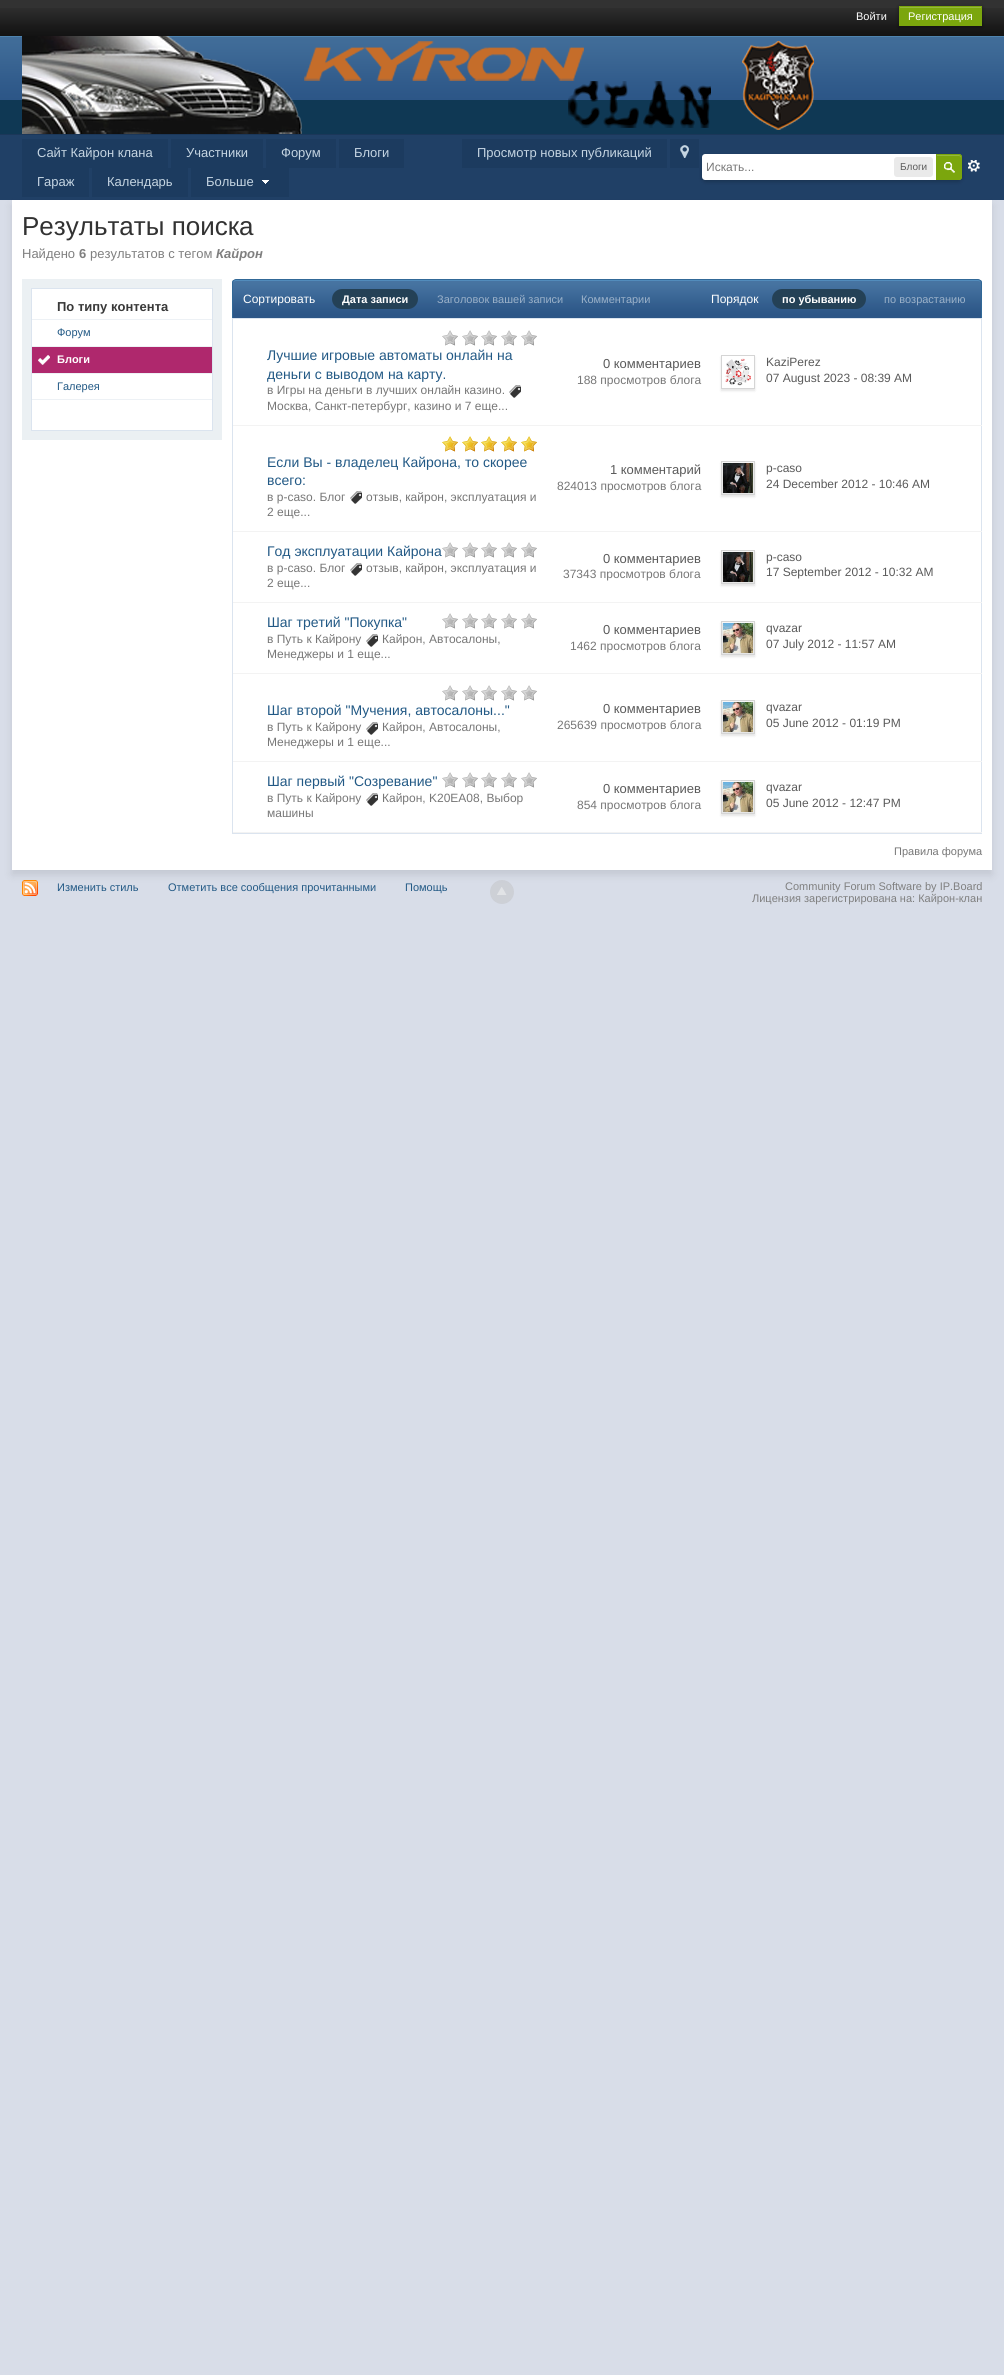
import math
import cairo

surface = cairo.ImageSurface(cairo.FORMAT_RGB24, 1004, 2375)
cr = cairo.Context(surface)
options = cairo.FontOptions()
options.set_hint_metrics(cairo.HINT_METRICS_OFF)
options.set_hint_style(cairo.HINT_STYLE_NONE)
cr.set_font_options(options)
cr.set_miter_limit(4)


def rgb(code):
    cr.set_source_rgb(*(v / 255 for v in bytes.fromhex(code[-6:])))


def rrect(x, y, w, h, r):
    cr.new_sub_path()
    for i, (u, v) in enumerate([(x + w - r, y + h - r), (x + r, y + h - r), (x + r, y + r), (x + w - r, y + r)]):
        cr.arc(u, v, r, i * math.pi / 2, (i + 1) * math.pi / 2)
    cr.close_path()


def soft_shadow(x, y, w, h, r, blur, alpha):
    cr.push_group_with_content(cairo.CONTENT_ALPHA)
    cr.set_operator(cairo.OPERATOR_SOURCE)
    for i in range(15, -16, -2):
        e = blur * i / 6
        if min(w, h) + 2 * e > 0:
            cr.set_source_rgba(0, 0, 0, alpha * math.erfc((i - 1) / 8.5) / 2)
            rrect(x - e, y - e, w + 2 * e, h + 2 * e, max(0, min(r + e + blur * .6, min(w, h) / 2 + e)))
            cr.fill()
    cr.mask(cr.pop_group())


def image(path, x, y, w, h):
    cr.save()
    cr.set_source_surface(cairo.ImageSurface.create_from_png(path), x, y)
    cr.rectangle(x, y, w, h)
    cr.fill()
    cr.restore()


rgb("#d8dde8")
cr.paint()
rgb("#323232")
cr.rectangle(0, 0, 1004, 8)
cr.fill()
image("img/1.png", 0, 8, 1004, 28)
rgb("#000000")
soft_shadow(899, 7, 83, 20, 0, 2, 0.4)
for x, y, w, h, color in [
    (899, 6, 83, 20, "#7ba60d"),
    (900, 7, 81, 1, "#95b83d"),
    (0, 135, 1004, 65, "#204066"),
    (22, 139, 146, 29, "#1c3b5f"),
    (171, 139, 92, 29, "#1c3b5f"),
    (266, 139, 70, 29, "#1c3b5f"),
    (339, 139, 65, 29, "#1c3b5f"),
    (462, 139, 205, 29, "#1c3b5f"),
]:
    rgb(color)
    cr.rectangle(x, y, w, h)
    cr.fill()
image("img/7.png", 968, 160, 12, 12)
rgb("#000000")
soft_shadow(702, 156, 260, 26, 4, 2, 0.2)
rgb("#1c3b5f")
cr.rectangle(670, 139, 29, 29)
cr.fill()
image("img/2.png", 680, 145, 9, 13)
rgb("#000000")
soft_shadow(12, 205, 980, 670, 0, 4.5, 0.1)
for x, y, w, h, color in [
    (22, 168, 67, 29, "#1c3b5f"),
    (92, 168, 96, 29, "#1c3b5f"),
    (191, 168, 98, 29, "#1c3b5f"),
]:
    rgb(color)
    cr.rectangle(x, y, w, h)
    cr.fill()
image("img/3.png", 262, 180, 7, 4)
rgb("#0f3854")
cr.rectangle(0, 100, 1004, 34)
cr.fill()
image("img/4.png", 0, 36, 1004, 64)
rgb("#1b3759")
cr.rectangle(0, 134, 1004, 1)
cr.fill()
image("img/5.png", 22, 36, 792, 98)
rgb("#ffffff")
cr.new_path()
cr.move_to(705, 154)
cr.line_to(958, 154)
cr.curve_to(960, 154, 962, 156, 962, 158)
cr.line_to(962, 176)
cr.curve_to(962, 178, 960, 180, 958, 180)
cr.line_to(705, 180)
cr.curve_to(703.5, 180, 702, 178.5, 702, 177)
cr.line_to(702, 157)
cr.curve_to(702, 155.5, 703.5, 154, 705, 154)
cr.close_path()
cr.fill()
rgb("#eaeaea")
rrect(894, 157, 39, 20, 3)
cr.fill()
rgb("#7ba60d")
cr.new_path()
cr.move_to(936, 154)
cr.line_to(959, 154)
cr.curve_to(960.5, 154, 962, 155.5, 962, 157)
cr.line_to(962, 177)
cr.curve_to(962, 178.5, 960.5, 180, 959, 180)
cr.line_to(936, 180)
cr.close_path()
cr.fill()
image("img/6.png", 944, 162, 11, 11)
rgb("#95b83d")
cr.new_path()
cr.move_to(937, 156)
cr.line_to(959, 156)
cr.curve_to(960, 156, 961, 157, 961, 158)
cr.line_to(961, 157)
cr.curve_to(961, 156, 960, 155, 959, 155)
cr.line_to(937, 155)
cr.close_path()
cr.fill()
cr.new_path()
cr.move_to(936.5, 154.5)
cr.line_to(959, 154.5)
cr.curve_to(960.5, 154.5, 961.5, 155.5, 961.5, 157)
cr.line_to(961.5, 177)
cr.curve_to(961.5, 178.5, 960.5, 179.5, 959, 179.5)
cr.line_to(936.5, 179.5)
cr.close_path()
rgb("#7ba60d")
cr.set_line_width(1)
cr.stroke()
rgb("#ffffff")
cr.rectangle(12, 200, 980, 670)
cr.fill()
rgb("#ebf0f3")
cr.rectangle(22, 279, 200, 161)
cr.fill()
rgb("#ffffff")
cr.rectangle(31.5, 288.5, 181, 142)
cr.fill_preserve()
rgb("#dbe4ef")
cr.stroke()
for x, y, w, h, color in [
    (32, 319, 180, 1, "#edf1f5"),
    (32, 346, 180, 1, "#edf1f5"),
    (32, 373, 180, 1, "#edf1f5"),
    (32, 347, 180, 26, "#af286d"),
]:
    rgb(color)
    cr.rectangle(x, y, w, h)
    cr.fill()
image("img/8.png", 38, 355, 12, 10)
rgb("#edf1f5")
cr.rectangle(32, 399, 180, 1)
cr.fill()
rgb("#2c5687")
cr.rectangle(233, 315, 748, 3)
cr.fill()
image("img/9.png", 232, 280, 750, 35)
rgb("#528cbc")
cr.new_path()
cr.move_to(236, 281)
cr.line_to(978, 281)
cr.curve_to(980, 281, 981, 282, 981, 284)
cr.curve_to(981, 282, 980, 280, 978, 280)
cr.line_to(236, 280)
cr.curve_to(234, 280, 233, 282, 233, 284)
cr.curve_to(233, 282, 234, 281, 236, 281)
cr.close_path()
cr.fill()
rgb("#316897")
cr.set_fill_rule(cairo.FILL_RULE_EVEN_ODD)
cr.new_path()
cr.move_to(236, 279)
cr.line_to(978, 279)
cr.curve_to(980, 279, 982, 281, 982, 283)
cr.line_to(982, 318)
cr.line_to(232, 318)
cr.line_to(232, 283)
cr.curve_to(232, 281, 234, 279, 236, 279)
cr.close_path()
cr.move_to(236, 280)
cr.line_to(978, 280)
cr.curve_to(980, 280, 981, 281, 981, 283)
cr.line_to(981, 318)
cr.line_to(233, 318)
cr.line_to(233, 283)
cr.curve_to(233, 281, 234, 280, 236, 280)
cr.close_path()
cr.fill()
rgb("#244156")
rrect(332, 289, 86, 20, 10)
cr.fill()
rrect(772, 289, 94, 20, 10)
cr.fill()
cr.rectangle(232.5, 318.5, 749, 515)
rgb("#dbe4ef")
cr.stroke()
image("img/10.png", 442, 330, 16, 16)
image("img/10.png", 462, 330, 16, 16)
image("img/10.png", 481, 330, 16, 16)
image("img/10.png", 501, 330, 16, 16)
image("img/10.png", 521, 330, 16, 16)
image("img/11.png", 509, 385, 12, 13)
rgb("#f3f3f3")
cr.rectangle(233, 425, 749, 1)
cr.fill()
cr.save()
cr.new_path()
cr.move_to(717, 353)
cr.line_to(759, 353)
cr.line_to(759, 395)
cr.line_to(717, 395)
cr.close_path()
cr.move_to(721, 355)
cr.line_to(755, 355)
cr.line_to(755, 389)
cr.line_to(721, 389)
cr.close_path()
cr.clip()
rgb("#000000")
soft_shadow(721, 357, 34, 34, 0, 1, 0.1)
cr.restore()
cr.rectangle(721.5, 355.5, 33, 33)
rgb("#d5d5d5")
cr.stroke()
image("img/12.png", 725, 358, 26, 28)
image("img/13.png", 442, 436, 16, 16)
image("img/13.png", 462, 436, 16, 16)
image("img/13.png", 481, 436, 16, 16)
image("img/13.png", 501, 436, 16, 16)
image("img/13.png", 521, 436, 16, 16)
image("img/11.png", 350, 491, 12, 13)
rgb("#f3f3f3")
cr.rectangle(233, 531, 749, 1)
cr.fill()
rgb("#000000")
soft_shadow(721, 463, 34, 34, 0, 1, 0.1)
cr.rectangle(721.5, 461.5, 33, 33)
rgb("#d5d5d5")
cr.stroke()
image("img/14.png", 723, 463, 30, 30)
image("img/10.png", 442, 542, 16, 16)
image("img/10.png", 462, 542, 16, 16)
image("img/10.png", 481, 542, 16, 16)
image("img/10.png", 501, 542, 16, 16)
image("img/10.png", 521, 542, 16, 16)
image("img/11.png", 350, 563, 12, 13)
rgb("#f3f3f3")
cr.rectangle(233, 602, 749, 1)
cr.fill()
rgb("#000000")
soft_shadow(721, 552, 34, 34, 0, 1, 0.1)
cr.rectangle(721.5, 550.5, 33, 33)
rgb("#d5d5d5")
cr.stroke()
image("img/14.png", 723, 552, 30, 30)
image("img/10.png", 442, 613, 16, 16)
image("img/10.png", 462, 613, 16, 16)
image("img/10.png", 481, 613, 16, 16)
image("img/10.png", 501, 613, 16, 16)
image("img/10.png", 521, 613, 16, 16)
image("img/11.png", 366, 634, 12, 13)
rgb("#f3f3f3")
cr.rectangle(233, 673, 749, 1)
cr.fill()
rgb("#000000")
soft_shadow(721, 623, 34, 34, 0, 1, 0.1)
cr.rectangle(721.5, 621.5, 33, 33)
rgb("#d5d5d5")
cr.stroke()
image("img/15.png", 723, 623, 30, 30)
image("img/10.png", 442, 685, 16, 16)
image("img/10.png", 462, 685, 16, 16)
image("img/10.png", 481, 685, 16, 16)
image("img/10.png", 501, 685, 16, 16)
image("img/10.png", 521, 685, 16, 16)
image("img/11.png", 366, 722, 12, 13)
rgb("#f3f3f3")
cr.rectangle(233, 761, 749, 1)
cr.fill()
rgb("#000000")
soft_shadow(721, 702, 34, 34, 0, 1, 0.1)
cr.rectangle(721.5, 700.5, 33, 33)
rgb("#d5d5d5")
cr.stroke()
image("img/15.png", 723, 702, 30, 30)
image("img/10.png", 442, 772, 16, 16)
image("img/10.png", 462, 772, 16, 16)
image("img/10.png", 481, 772, 16, 16)
image("img/10.png", 501, 772, 16, 16)
image("img/10.png", 521, 772, 16, 16)
image("img/11.png", 366, 793, 12, 13)
rgb("#f3f3f3")
cr.rectangle(233, 832, 749, 1)
cr.fill()
rgb("#000000")
soft_shadow(721, 782, 34, 34, 0, 1, 0.1)
cr.rectangle(721.5, 780.5, 33, 33)
rgb("#d5d5d5")
cr.stroke()
image("img/16.png", 723, 782, 30, 30)
image("img/17.png", 22, 880, 16, 16)
cr.set_source_rgba(0.741, 0.741, 0.741, 0.4)
cr.arc(502, 892, 12, 0, 2 * math.pi)
cr.fill()
image("img/18.png", 497, 887, 10, 8)
cr.select_font_face("Liberation Sans")
cr.set_font_size(11)
rgb("#ffffff")
cr.move_to(856, 20)
cr.show_text("Войти")
cr.move_to(908, 20)
cr.show_text("Регистрация")
cr.set_font_size(13)
rgb("#c5d5e2")
for x, y, s in [
    (37, 157, "Сайт Кайрон клана"),
    (186, 157, "Участники"),
    (281, 157, "Форум"),
    (354, 157, "Блоги"),
    (477, 157, "Просмотр новых публикаций"),
    (37, 186, "Гараж"),
    (107, 186, "Календарь"),
    (206, 186, "Больше"),
]:
    cr.move_to(x, y)
    cr.show_text(s)
cr.set_font_size(12)
rgb("#777777")
cr.move_to(706, 171)
cr.show_text("Искать...")
cr.set_font_size(10)
rgb("#5a5a5a")
cr.move_to(900, 170)
cr.show_text("Блоги")
cr.set_font_size(26)
rgb("#323232")
cr.move_to(22, 235)
cr.show_text("Результаты поиска")
cr.set_font_size(13)
rgb("#7f7f7f")
cr.move_to(22, 258)
cr.show_text("Найдено")
cr.select_font_face("Liberation Sans", cairo.FONT_SLANT_NORMAL, cairo.FONT_WEIGHT_BOLD)
cr.move_to(79, 258)
cr.show_text("6")
cr.select_font_face("Liberation Sans")
cr.move_to(90, 258)
cr.show_text("результатов с тегом")
cr.select_font_face("Liberation Sans", cairo.FONT_SLANT_ITALIC, cairo.FONT_WEIGHT_BOLD)
cr.move_to(216, 258)
cr.show_text("Кайрон")
cr.select_font_face("Liberation Sans", cairo.FONT_SLANT_NORMAL, cairo.FONT_WEIGHT_BOLD)
rgb("#383838")
cr.move_to(57, 311)
cr.show_text("По типу контента")
cr.select_font_face("Liberation Sans")
cr.set_font_size(11)
rgb("#225985")
cr.move_to(57, 336)
cr.show_text("Форум")
cr.select_font_face("Liberation Sans", cairo.FONT_SLANT_NORMAL, cairo.FONT_WEIGHT_BOLD)
rgb("#ffffff")
cr.move_to(57, 363)
cr.show_text("Блоги")
cr.select_font_face("Liberation Sans")
rgb("#225985")
cr.move_to(57, 390)
cr.show_text("Галерея")
cr.set_font_size(12)
rgb("#ffffff")
cr.move_to(243, 303)
cr.show_text("Сортировать")
cr.select_font_face("Liberation Sans", cairo.FONT_SLANT_NORMAL, cairo.FONT_WEIGHT_BOLD)
cr.set_font_size(11)
cr.move_to(342, 303)
cr.show_text("Дата записи")
cr.select_font_face("Liberation Sans")
rgb("#9bb1c9")
cr.move_to(437, 303)
cr.show_text("Заголовок вашей записи")
cr.move_to(581, 303)
cr.show_text("Комментарии")
cr.set_font_size(12)
rgb("#ffffff")
cr.move_to(711, 303)
cr.show_text("Порядок")
cr.select_font_face("Liberation Sans", cairo.FONT_SLANT_NORMAL, cairo.FONT_WEIGHT_BOLD)
cr.set_font_size(11)
cr.move_to(782, 303)
cr.show_text("по убыванию")
cr.select_font_face("Liberation Sans")
rgb("#9bb1c9")
cr.move_to(884, 303)
cr.show_text("по возрастанию")
cr.set_font_size(14)
rgb("#225985")
cr.move_to(267, 360)
cr.show_text("Лучшие игровые автоматы онлайн на")
cr.move_to(267, 379)
cr.show_text("деньги с выводом на карту.")
cr.set_font_size(12)
rgb("#777777")
cr.move_to(267, 394)
cr.show_text("в Игры на деньги в лучших онлайн казино.")
cr.move_to(267, 410)
cr.show_text("Москва, Санкт-петербург, казино и 7 еще...")
cr.set_font_size(13)
rgb("#5a5a5a")
cr.move_to(603, 368)
cr.show_text("0 комментариев")
cr.set_font_size(12)
rgb("#777777")
cr.move_to(577, 384)
cr.show_text("188 просмотров блога")
rgb("#5a5a5a")
cr.move_to(766, 366)
cr.show_text("KaziPerez")
cr.move_to(766, 382)
cr.show_text("07 August 2023 - 08:39 AM")
cr.set_font_size(14)
rgb("#225985")
cr.move_to(267, 467)
cr.show_text("Если Вы - владелец Кайрона, то скорее")
cr.move_to(267, 485)
cr.show_text("всего:")
cr.set_font_size(12)
rgb("#777777")
for x, y, s in [
    (267, 501, "в p-caso. Блог"),
    (366, 501, "отзыв, кайрон, эксплуатация и"),
    (267, 516, "2 еще..."),
]:
    cr.move_to(x, y)
    cr.show_text(s)
cr.set_font_size(13)
rgb("#5a5a5a")
cr.move_to(610, 474)
cr.show_text("1 комментарий")
cr.set_font_size(12)
rgb("#777777")
cr.move_to(557, 490)
cr.show_text("824013 просмотров блога")
rgb("#5a5a5a")
cr.move_to(766, 472)
cr.show_text("p-caso")
cr.move_to(766, 488)
cr.show_text("24 December 2012 - 10:46 AM")
cr.set_font_size(14)
rgb("#225985")
cr.move_to(267, 556)
cr.show_text("Год эксплуатации Кайрона")
cr.set_font_size(12)
rgb("#777777")
for x, y, s in [
    (267, 572, "в p-caso. Блог"),
    (366, 572, "отзыв, кайрон, эксплуатация и"),
    (267, 587, "2 еще..."),
]:
    cr.move_to(x, y)
    cr.show_text(s)
cr.set_font_size(13)
rgb("#5a5a5a")
cr.move_to(603, 563)
cr.show_text("0 комментариев")
cr.set_font_size(12)
rgb("#777777")
cr.move_to(563, 578)
cr.show_text("37343 просмотров блога")
rgb("#5a5a5a")
cr.move_to(766, 561)
cr.show_text("p-caso")
cr.move_to(766, 576)
cr.show_text("17 September 2012 - 10:32 AM")
cr.set_font_size(14)
rgb("#225985")
cr.move_to(267, 627)
cr.show_text("Шаг третий \"Покупка\"")
cr.set_font_size(12)
rgb("#777777")
for x, y, s in [
    (267, 643, "в Путь к Кайрону"),
    (382, 643, "Кайрон, Автосалоны,"),
    (267, 658, "Менеджеры и 1 еще..."),
]:
    cr.move_to(x, y)
    cr.show_text(s)
cr.set_font_size(13)
rgb("#5a5a5a")
cr.move_to(603, 634)
cr.show_text("0 комментариев")
cr.set_font_size(12)
rgb("#777777")
cr.move_to(570, 650)
cr.show_text("1462 просмотров блога")
rgb("#5a5a5a")
cr.move_to(766, 632)
cr.show_text("qvazar")
cr.move_to(766, 648)
cr.show_text("07 July 2012 - 11:57 AM")
cr.set_font_size(14)
rgb("#225985")
cr.move_to(267, 715)
cr.show_text("Шаг второй \"Мучения, автосалоны...\"")
cr.set_font_size(12)
rgb("#777777")
for x, y, s in [
    (267, 731, "в Путь к Кайрону"),
    (382, 731, "Кайрон, Автосалоны,"),
    (267, 746, "Менеджеры и 1 еще..."),
]:
    cr.move_to(x, y)
    cr.show_text(s)
cr.set_font_size(13)
rgb("#5a5a5a")
cr.move_to(603, 713)
cr.show_text("0 комментариев")
cr.set_font_size(12)
rgb("#777777")
cr.move_to(557, 729)
cr.show_text("265639 просмотров блога")
rgb("#5a5a5a")
cr.move_to(766, 711)
cr.show_text("qvazar")
cr.move_to(766, 727)
cr.show_text("05 June 2012 - 01:19 PM")
cr.set_font_size(14)
rgb("#225985")
cr.move_to(267, 786)
cr.show_text("Шаг первый \"Созревание\"")
cr.set_font_size(12)
rgb("#777777")
for x, y, s in [
    (267, 802, "в Путь к Кайрону"),
    (382, 802, "Кайрон, K20EA08, Выбор"),
    (267, 817, "машины"),
]:
    cr.move_to(x, y)
    cr.show_text(s)
cr.set_font_size(13)
rgb("#5a5a5a")
cr.move_to(603, 793)
cr.show_text("0 комментариев")
cr.set_font_size(12)
rgb("#777777")
cr.move_to(577, 809)
cr.show_text("854 просмотров блога")
rgb("#5a5a5a")
cr.move_to(766, 791)
cr.show_text("qvazar")
cr.move_to(766, 807)
cr.show_text("05 June 2012 - 12:47 PM")
cr.set_font_size(11)
rgb("#777777")
cr.move_to(894, 855)
cr.show_text("Правила форума")
rgb("#225985")
for x, y, s in [
    (57, 891, "Изменить стиль"),
    (168, 891, "Отметить все сообщения прочитанными"),
    (405, 891, "Помощь"),
]:
    cr.move_to(x, y)
    cr.show_text(s)
rgb("#7f7f7f")
cr.move_to(785, 890)
cr.show_text("Community Forum Software by IP.Board")
cr.move_to(752, 902)
cr.show_text("Лицензия зарегистрирована на: Кайрон-клан")
surface.write_to_png("page.png")
